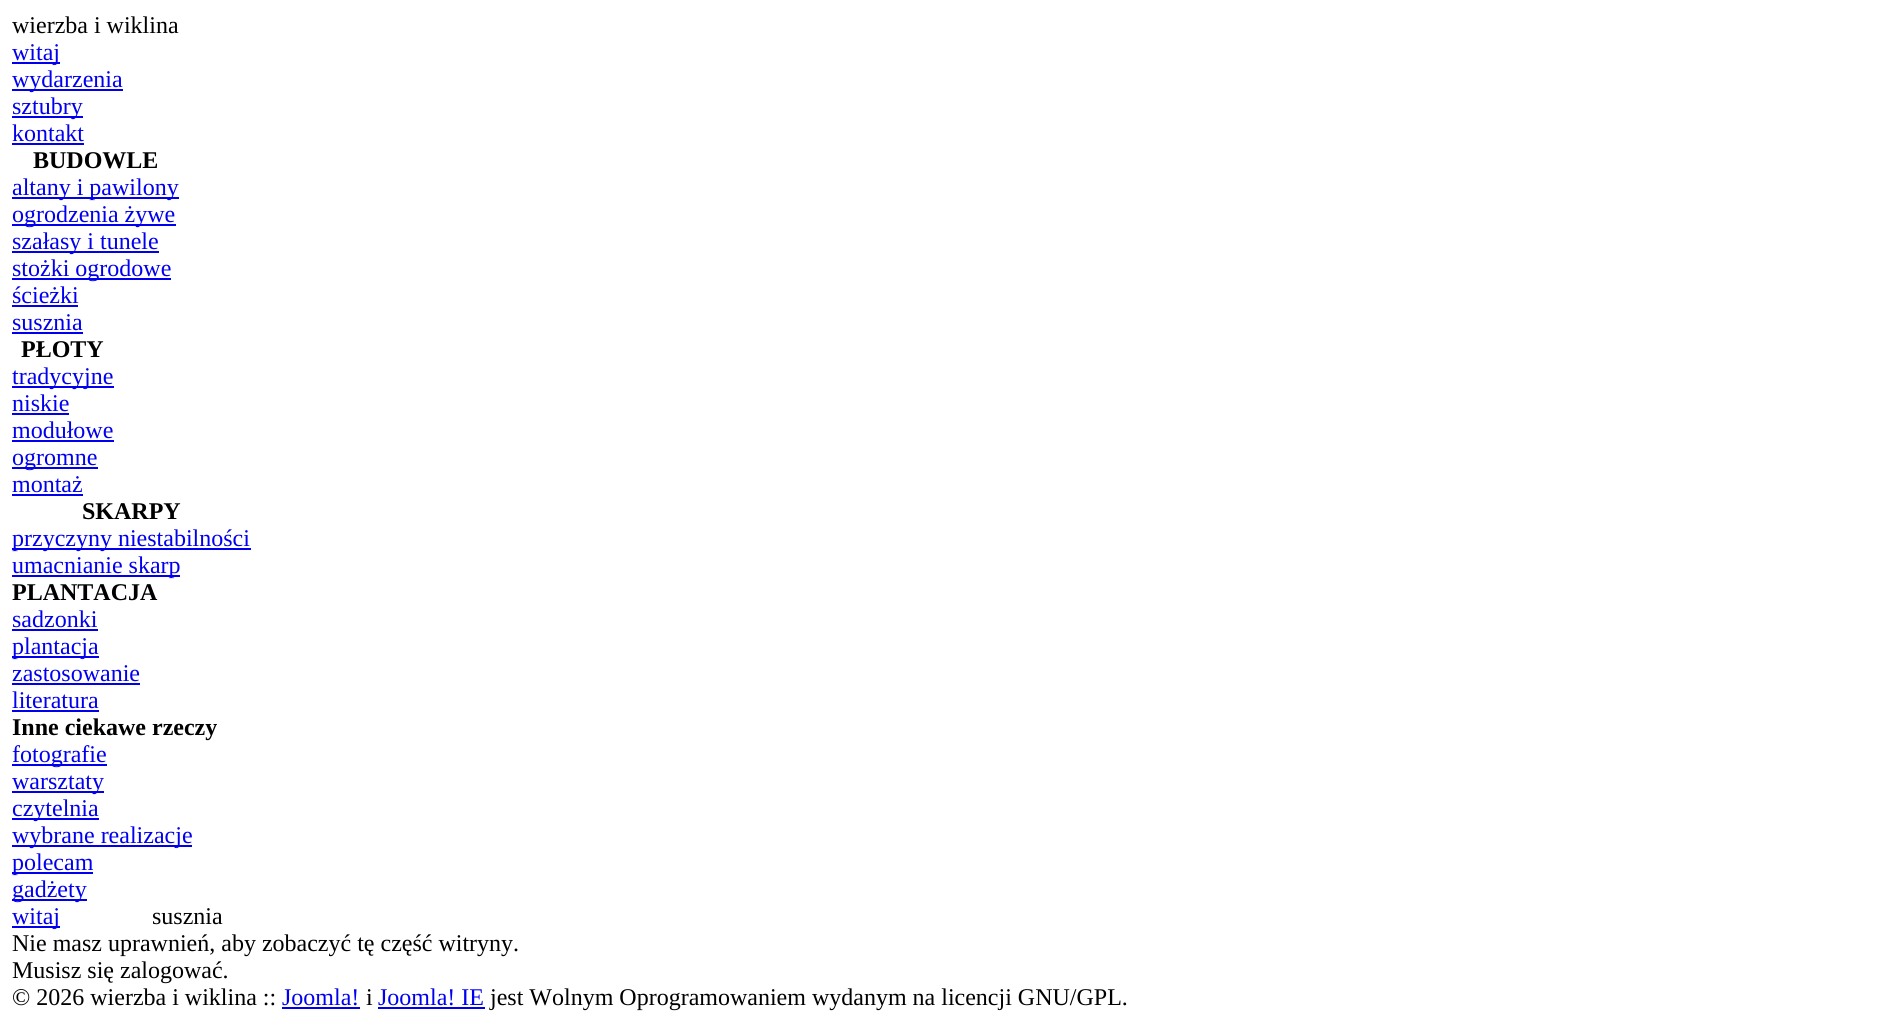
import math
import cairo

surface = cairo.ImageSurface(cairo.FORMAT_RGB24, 1901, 1022)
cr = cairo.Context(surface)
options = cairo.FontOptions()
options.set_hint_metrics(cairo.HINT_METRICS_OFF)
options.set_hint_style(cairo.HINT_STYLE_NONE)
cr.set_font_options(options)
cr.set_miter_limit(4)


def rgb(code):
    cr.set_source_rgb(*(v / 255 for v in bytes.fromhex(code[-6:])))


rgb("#ffffff")
cr.paint()
for x, y, w, h, color in [
    (12, 62, 48, 2, "#0000ee"),
    (12, 89, 111, 2, "#0000ee"),
    (12, 116, 71, 2, "#0000ee"),
    (12, 143, 72, 2, "#0000ee"),
    (12, 197, 167, 2, "#0000ee"),
    (12, 224, 164, 2, "#0000ee"),
    (12, 251, 147, 2, "#0000ee"),
    (12, 278, 159, 2, "#0000ee"),
    (12, 305, 66, 2, "#0000ee"),
    (12, 332, 71, 2, "#0000ee"),
    (12, 386, 102, 2, "#0000ee"),
    (12, 413, 57, 2, "#0000ee"),
    (12, 440, 102, 2, "#0000ee"),
    (12, 467, 86, 2, "#0000ee"),
    (12, 494, 71, 2, "#0000ee"),
    (12, 548, 239, 2, "#0000ee"),
    (12, 575, 168, 2, "#0000ee"),
    (12, 629, 86, 2, "#0000ee"),
    (12, 656, 87, 2, "#0000ee"),
    (12, 683, 128, 2, "#0000ee"),
    (12, 710, 87, 2, "#0000ee"),
    (12, 764, 95, 2, "#0000ee"),
    (12, 791, 92, 2, "#0000ee"),
    (12, 818, 87, 2, "#0000ee"),
    (12, 845, 180, 2, "#0000ee"),
    (12, 872, 81, 2, "#0000ee"),
    (12, 899, 75, 2, "#0000ee"),
    (12, 926, 48, 2, "#0000ee"),
    (282, 1007, 78, 2, "#0000ee"),
    (378, 1007, 107, 2, "#0000ee"),
]:
    rgb(color)
    cr.rectangle(x, y, w, h)
    cr.fill()
cr.select_font_face("Liberation Serif")
cr.set_font_size(24)
rgb("#000000")
cr.move_to(12, 33)
cr.show_text("wierzba i wiklina")
rgb("#0000ee")
for x, y, s in [
    (12, 60, "witaj"),
    (12, 87, "wydarzenia"),
    (12, 114, "sztubry"),
    (12, 141, "kontakt"),
]:
    cr.move_to(x, y)
    cr.show_text(s)
cr.select_font_face("Liberation Serif", cairo.FONT_SLANT_NORMAL, cairo.FONT_WEIGHT_BOLD)
rgb("#000000")
cr.move_to(33, 168)
cr.show_text("BUDOWLE")
cr.select_font_face("Liberation Serif")
rgb("#0000ee")
for x, y, s in [
    (12, 195, "altany i pawilony"),
    (12, 222, "ogrodzenia żywe"),
    (12, 249, "szałasy i tunele"),
    (12, 276, "stożki ogrodowe"),
    (12, 303, "ścieżki"),
    (12, 330, "susznia"),
]:
    cr.move_to(x, y)
    cr.show_text(s)
cr.select_font_face("Liberation Serif", cairo.FONT_SLANT_NORMAL, cairo.FONT_WEIGHT_BOLD)
rgb("#000000")
cr.move_to(21, 357)
cr.show_text("PŁOTY")
cr.select_font_face("Liberation Serif")
rgb("#0000ee")
for x, y, s in [
    (12, 384, "tradycyjne"),
    (12, 411, "niskie"),
    (12, 438, "modułowe"),
    (12, 465, "ogromne"),
    (12, 492, "montaż"),
]:
    cr.move_to(x, y)
    cr.show_text(s)
cr.select_font_face("Liberation Serif", cairo.FONT_SLANT_NORMAL, cairo.FONT_WEIGHT_BOLD)
rgb("#000000")
cr.move_to(82, 519)
cr.show_text("SKARPY")
cr.select_font_face("Liberation Serif")
rgb("#0000ee")
cr.move_to(12, 546)
cr.show_text("przyczyny niestabilności")
cr.move_to(12, 573)
cr.show_text("umacnianie skarp")
cr.select_font_face("Liberation Serif", cairo.FONT_SLANT_NORMAL, cairo.FONT_WEIGHT_BOLD)
rgb("#000000")
cr.move_to(12, 600)
cr.show_text("PLANTACJA")
cr.select_font_face("Liberation Serif")
rgb("#0000ee")
for x, y, s in [
    (12, 627, "sadzonki"),
    (12, 654, "plantacja"),
    (12, 681, "zastosowanie"),
    (12, 708, "literatura"),
]:
    cr.move_to(x, y)
    cr.show_text(s)
cr.select_font_face("Liberation Serif", cairo.FONT_SLANT_NORMAL, cairo.FONT_WEIGHT_BOLD)
rgb("#000000")
cr.move_to(12, 735)
cr.show_text("Inne ciekawe rzeczy")
cr.select_font_face("Liberation Serif")
rgb("#0000ee")
for x, y, s in [
    (12, 762, "fotografie"),
    (12, 789, "warsztaty"),
    (12, 816, "czytelnia"),
    (12, 843, "wybrane realizacje"),
    (12, 870, "polecam"),
    (12, 897, "gadżety"),
    (12, 924, "witaj"),
]:
    cr.move_to(x, y)
    cr.show_text(s)
rgb("#000000")
for x, y, s in [
    (152, 924, "susznia"),
    (12, 951, "Nie masz uprawnień, aby zobaczyć tę część witryny."),
    (12, 978, "Musisz się zalogować."),
    (12, 1005, "© 2026 wierzba i wiklina ::"),
]:
    cr.move_to(x, y)
    cr.show_text(s)
rgb("#0000ee")
cr.move_to(282, 1005)
cr.show_text("Joomla!")
rgb("#000000")
cr.move_to(366, 1005)
cr.show_text("i")
rgb("#0000ee")
cr.move_to(378, 1005)
cr.show_text("Joomla! IE")
rgb("#000000")
cr.move_to(490, 1005)
cr.show_text("jest Wolnym Oprogramowaniem wydanym na licencji GNU/GPL.")
surface.write_to_png("page.png")
